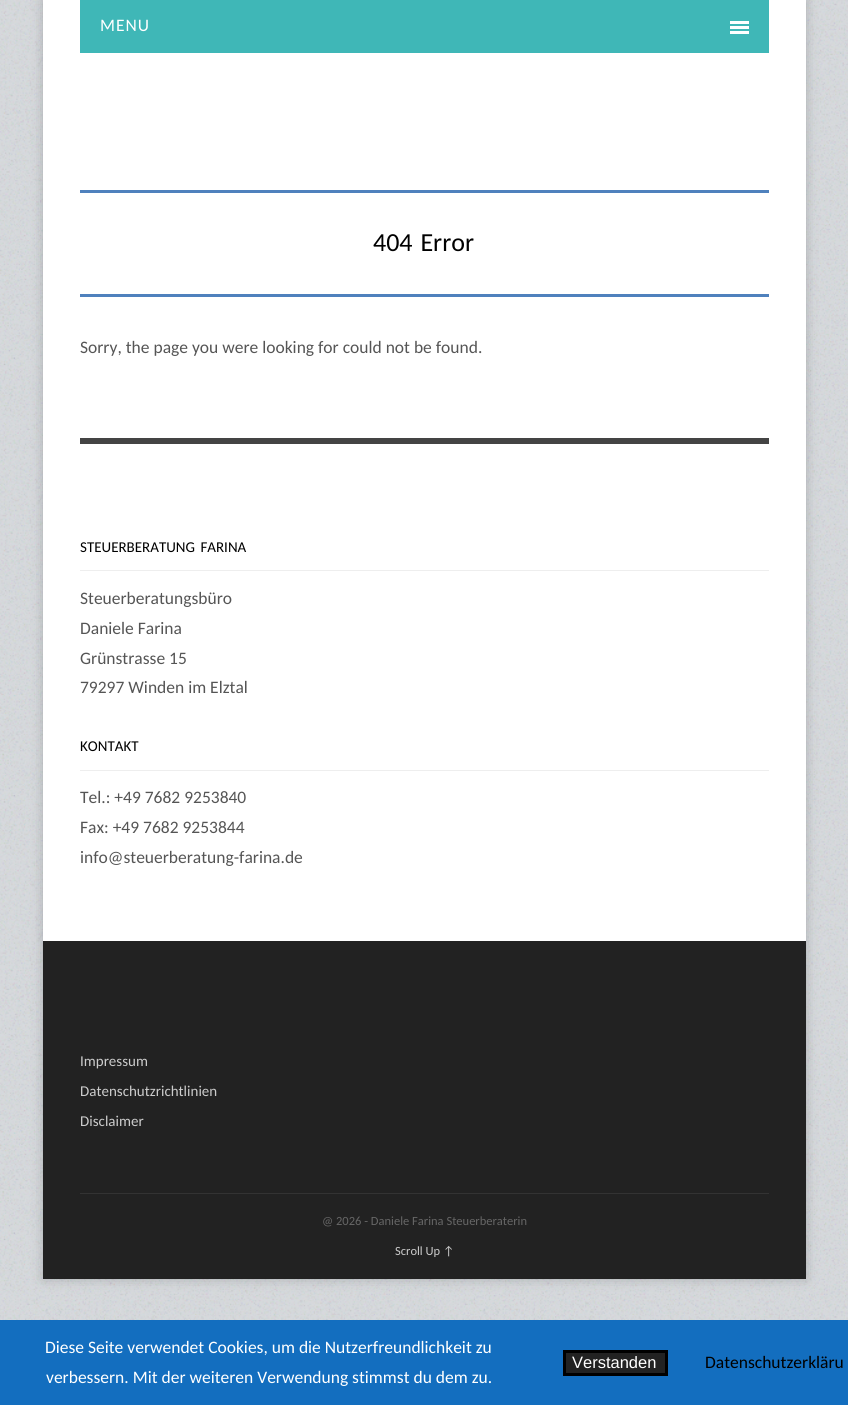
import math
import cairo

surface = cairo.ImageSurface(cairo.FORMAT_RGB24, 848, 1405)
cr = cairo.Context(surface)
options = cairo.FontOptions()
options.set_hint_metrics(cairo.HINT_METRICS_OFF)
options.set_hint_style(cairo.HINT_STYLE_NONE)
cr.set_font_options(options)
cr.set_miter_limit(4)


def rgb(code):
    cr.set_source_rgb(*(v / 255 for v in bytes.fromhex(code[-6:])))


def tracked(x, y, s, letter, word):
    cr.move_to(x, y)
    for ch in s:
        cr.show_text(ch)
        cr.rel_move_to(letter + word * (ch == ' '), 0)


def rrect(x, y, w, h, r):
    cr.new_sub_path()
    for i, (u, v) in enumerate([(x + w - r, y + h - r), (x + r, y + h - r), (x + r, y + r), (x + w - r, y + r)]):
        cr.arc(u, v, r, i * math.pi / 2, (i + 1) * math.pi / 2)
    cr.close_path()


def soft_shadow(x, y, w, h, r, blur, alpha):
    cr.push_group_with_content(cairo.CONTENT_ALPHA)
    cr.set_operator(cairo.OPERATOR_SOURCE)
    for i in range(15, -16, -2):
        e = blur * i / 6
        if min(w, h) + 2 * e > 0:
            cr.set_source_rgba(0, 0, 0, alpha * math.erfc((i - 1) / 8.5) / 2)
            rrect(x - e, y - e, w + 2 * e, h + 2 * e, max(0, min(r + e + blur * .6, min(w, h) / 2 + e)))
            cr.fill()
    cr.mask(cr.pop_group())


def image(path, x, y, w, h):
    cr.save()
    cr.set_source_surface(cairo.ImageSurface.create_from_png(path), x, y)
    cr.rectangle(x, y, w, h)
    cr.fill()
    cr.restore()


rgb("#ffffff")
cr.paint()
image("img/1.png", 0, 0, 848, 1320)
rgb("#000000")
soft_shadow(43, 0, 763, 1279, 0, 6, 0.2)
for x, y, w, h, color in [
    (43, 0, 763, 941, "#ffffff"),
    (80, 190, 689, 3, "#4f81bd"),
    (80, 0, 689, 53, "#3fb7b7"),
    (730, 21, 19, 3, "#ffffff"),
    (730, 26, 19, 3, "#ffffff"),
    (730, 31, 19, 3, "#ffffff"),
    (80, 294, 689, 3, "#4f81bd"),
    (80, 438, 689, 6, "#444444"),
    (80, 570, 689, 1, "#eeeeee"),
    (80, 770, 689, 1, "#eeeeee"),
    (43, 941, 763, 338, "#222222"),
    (80, 1193, 689, 1, "#333333"),
    (0, 1320, 848, 85, "#136ebf"),
]:
    rgb(color)
    cr.rectangle(x, y, w, h)
    cr.fill()
rgb("#222222")
cr.rectangle(564.5, 1351.5, 102, 23)
cr.fill_preserve()
rgb("#000000")
cr.set_line_width(3)
cr.stroke()
cr.select_font_face("Carlito")
cr.set_font_size(17.5)
rgb("#ffffff")
tracked(100, 31, "MENU", 1, 0)
cr.set_font_size(26)
rgb("#000000")
tracked(373, 251, "404 Error", 0, 2)
cr.set_font_size(17.5)
rgb("#555555")
cr.move_to(80, 353)
cr.show_text("Sorry, the page you were looking for could not be found.")
cr.set_font_size(15)
rgb("#000000")
tracked(80, 552, "STEUERBERATUNG FARINA", 0, 2)
cr.set_font_size(17.5)
rgb("#555555")
for x, y, s in [
    (80, 604, "Steuerberatungsbüro"),
    (80, 634, "Daniele Farina"),
    (80, 664, "Grünstrasse 15"),
    (80, 693, "79297 Winden im Elztal"),
]:
    cr.move_to(x, y)
    cr.show_text(s)
cr.set_font_size(15)
rgb("#000000")
cr.move_to(80, 751)
cr.show_text("KONTAKT")
cr.set_font_size(17.5)
rgb("#555555")
for x, y, s in [
    (80, 803, "Tel.: +49 7682 9253840"),
    (80, 833, "Fax: +49 7682 9253844"),
    (80, 863, "info@steuerberatung-farina.de"),
]:
    cr.move_to(x, y)
    cr.show_text(s)
cr.set_font_size(15)
rgb("#cccccc")
for x, y, s in [
    (80, 1066, "Impressum"),
    (80, 1096, "Datenschutzrichtlinien"),
    (80, 1126, "Disclaimer"),
]:
    cr.move_to(x, y)
    cr.show_text(s)
cr.set_font_size(12.5)
rgb("#666666")
cr.move_to(322, 1225)
cr.show_text("@ 2026 - Daniele Farina Steuerberaterin")
rgb("#cccccc")
cr.move_to(395, 1255)
cr.show_text("Scroll Up ↑")
cr.set_font_size(17.5)
rgb("#ffffff")
cr.move_to(45, 1353)
cr.show_text("Diese Seite verwendet Cookies, um die Nutzerfreundlichkeit zu")
cr.move_to(46, 1383)
cr.show_text("verbessern. Mit der weiteren Verwendung stimmst du dem zu.")
cr.select_font_face("Liberation Sans")
cr.set_font_size(16.5)
cr.move_to(572, 1368)
cr.show_text("Verstanden")
cr.select_font_face("Carlito")
cr.set_font_size(17.5)
rgb("#000000")
cr.move_to(705, 1368)
cr.show_text("Datenschutzerkläru")
surface.write_to_png("page.png")
